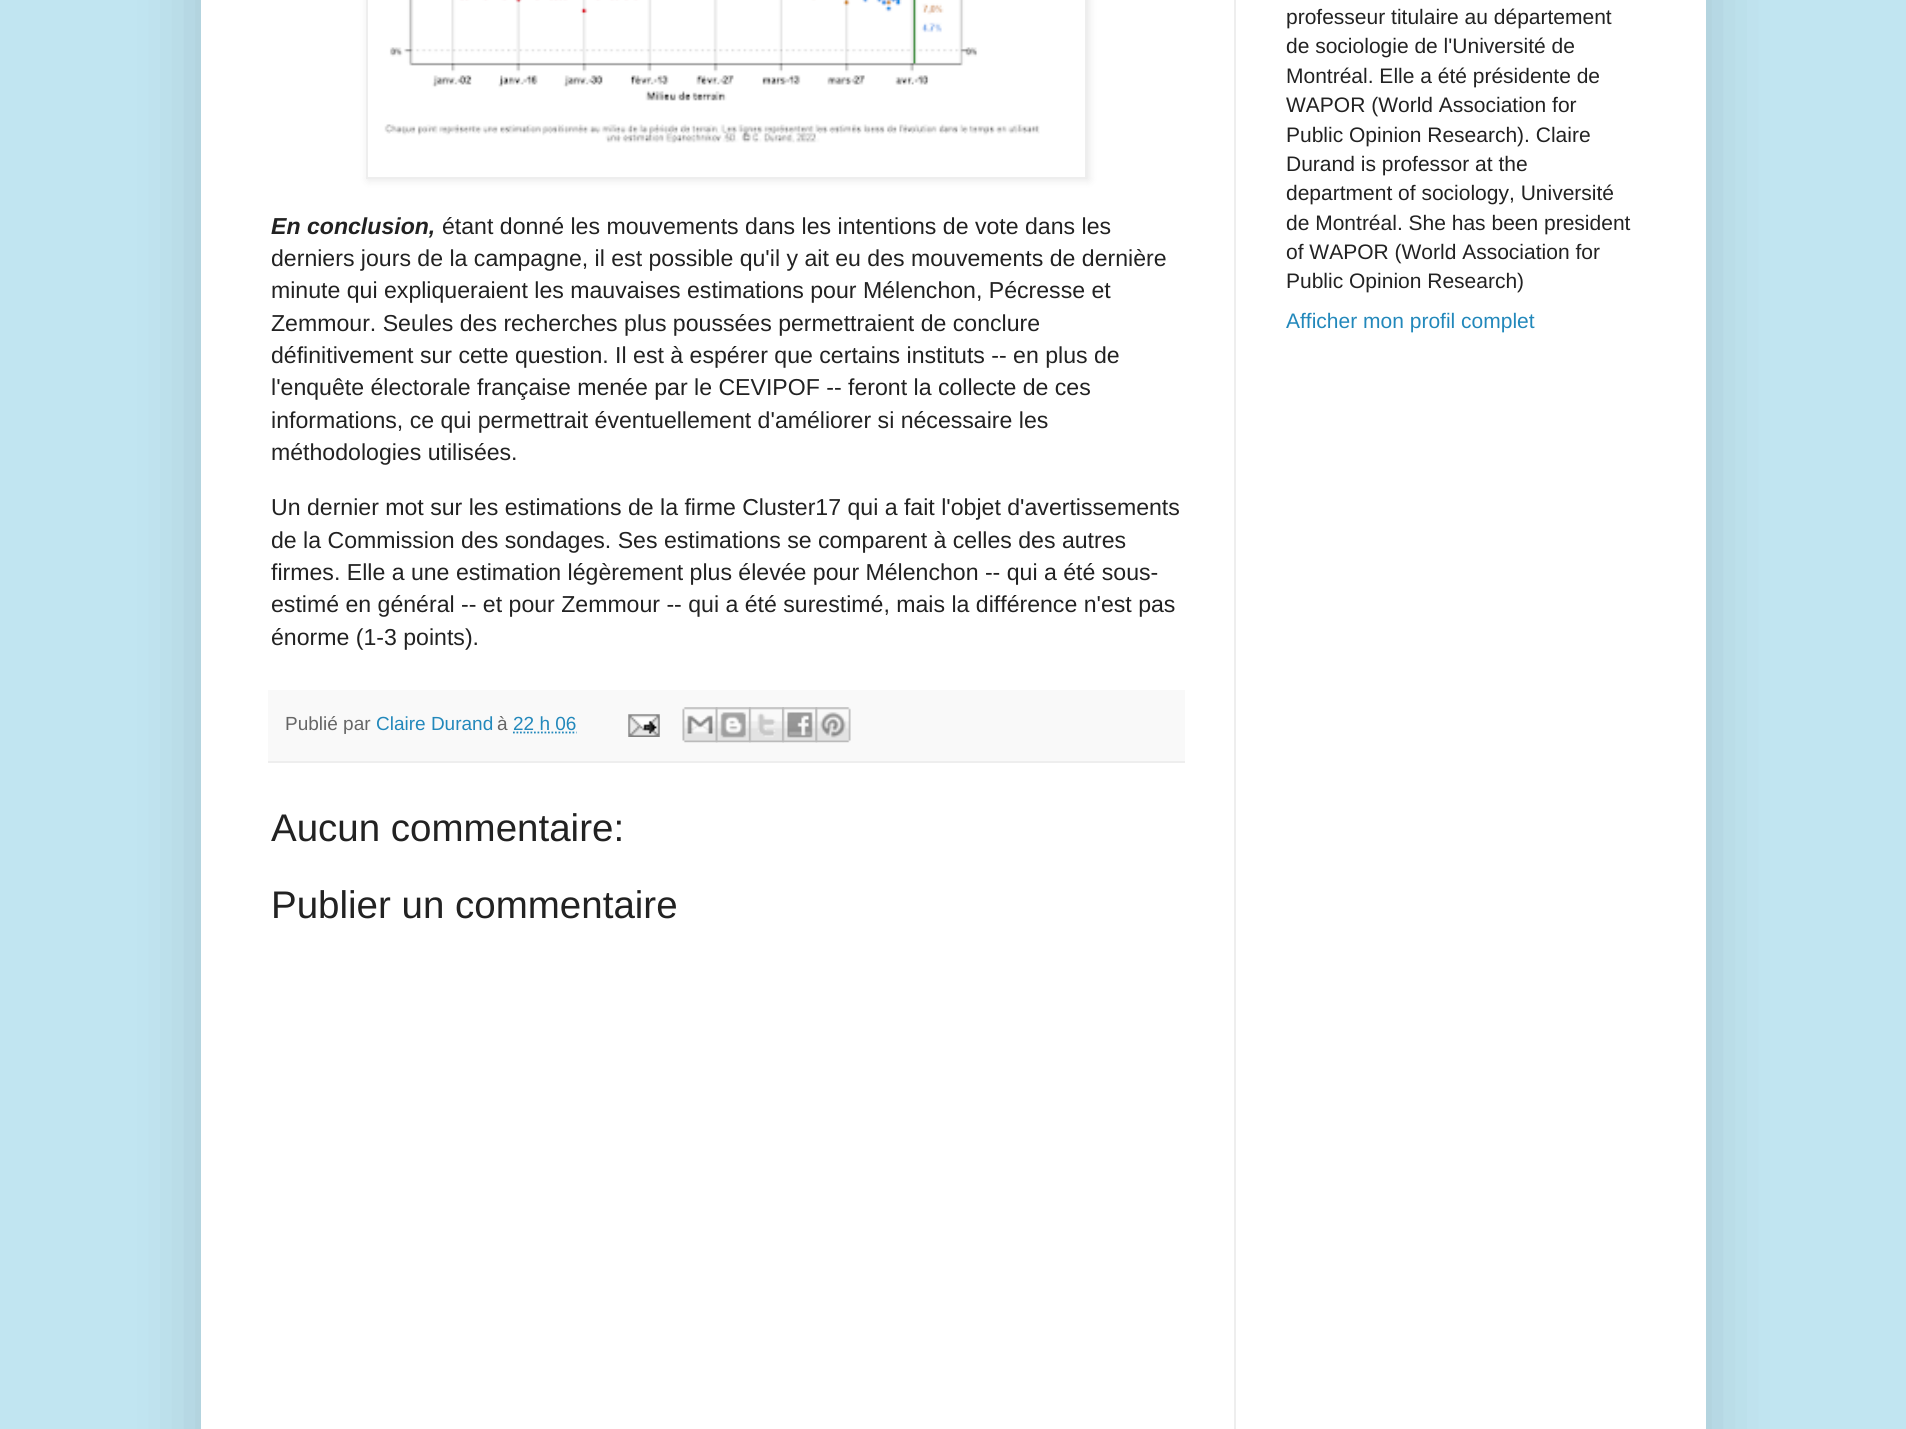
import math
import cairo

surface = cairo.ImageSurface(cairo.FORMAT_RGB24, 1906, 1429)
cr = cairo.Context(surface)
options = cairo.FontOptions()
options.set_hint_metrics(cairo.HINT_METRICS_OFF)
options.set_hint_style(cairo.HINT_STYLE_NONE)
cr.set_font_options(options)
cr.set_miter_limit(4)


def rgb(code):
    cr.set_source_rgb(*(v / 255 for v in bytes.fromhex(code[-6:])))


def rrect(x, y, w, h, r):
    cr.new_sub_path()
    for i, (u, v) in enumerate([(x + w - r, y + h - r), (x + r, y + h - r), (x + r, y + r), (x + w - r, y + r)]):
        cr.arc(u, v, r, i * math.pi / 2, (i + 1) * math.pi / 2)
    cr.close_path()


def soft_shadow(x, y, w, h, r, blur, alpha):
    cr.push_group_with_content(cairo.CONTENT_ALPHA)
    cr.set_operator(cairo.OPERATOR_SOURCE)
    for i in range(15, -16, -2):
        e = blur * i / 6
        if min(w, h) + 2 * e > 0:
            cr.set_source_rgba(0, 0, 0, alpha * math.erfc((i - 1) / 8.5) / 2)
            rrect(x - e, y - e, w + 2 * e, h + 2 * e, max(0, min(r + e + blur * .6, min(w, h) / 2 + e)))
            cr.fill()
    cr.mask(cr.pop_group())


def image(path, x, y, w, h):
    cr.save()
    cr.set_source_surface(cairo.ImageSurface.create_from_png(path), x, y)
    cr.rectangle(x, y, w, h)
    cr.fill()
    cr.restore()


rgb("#c1e5f1")
cr.paint()
rgb("#000000")
soft_shadow(201, -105, 1505, 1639, 0, 35, 0.15)
rgb("#ffffff")
cr.rectangle(201, 0, 1505, 1429)
cr.fill()
rgb("#eeeeee")
cr.rectangle(1234, 0, 2, 1429)
cr.fill()
rgb("#000000")
soft_shadow(368, -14, 721, 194, 0, 4.5, 0.1)
rgb("#ffffff")
cr.rectangle(367, -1, 719, 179)
cr.fill_preserve()
rgb("#eeeeee")
cr.stroke()
image("img/1.png", 384, 0, 656, 144)
rgb("#f9f9f9")
cr.rectangle(268, 690, 917, 71)
cr.fill()
rgb("#eeeeee")
cr.rectangle(268, 761, 917, 2)
cr.fill()
cr.new_path()
cr.move_to(513, 732.5)
cr.line_to(576.5, 732.5)
rgb("#2288bb")
cr.set_line_width(1.8)
cr.set_dash([1.75, 1.75])
cr.stroke()
image("img/2.png", 628, 714, 32, 23)
image("img/3.png", 682, 707, 36, 36)
image("img/4.png", 715, 707, 36, 36)
image("img/5.png", 749, 707, 35, 36)
image("img/6.png", 782, 707, 36, 36)
image("img/7.png", 815, 707, 36, 36)
cr.select_font_face("Liberation Sans")
cr.set_font_size(21)
rgb("#222222")
for x, y, s in [
    (1286, 24, "professeur titulaire au département"),
    (1286, 53, "de sociologie de l'Université de"),
    (1286, 83, "Montréal. Elle a été présidente de"),
    (1286, 112, "WAPOR (World Association for"),
    (1286, 142, "Public Opinion Research). Claire"),
    (1286, 171, "Durand is professor at the"),
    (1286, 200, "department of sociology, Université"),
    (1286, 230, "de Montréal. She has been president"),
    (1286, 259, "of WAPOR (World Association for"),
    (1286, 288, "Public Opinion Research)"),
]:
    cr.move_to(x, y)
    cr.show_text(s)
rgb("#2288bb")
cr.move_to(1286, 328)
cr.show_text("Afficher mon profil complet")
cr.select_font_face("Liberation Sans", cairo.FONT_SLANT_ITALIC, cairo.FONT_WEIGHT_BOLD)
cr.set_font_size(23.1)
rgb("#222222")
cr.move_to(271, 234)
cr.show_text("En conclusion,")
cr.select_font_face("Liberation Sans")
for x, y, s in [
    (442, 234, "étant donné les mouvements dans les intentions de vote dans les"),
    (271, 266, "derniers jours de la campagne, il est possible qu'il y ait eu des mouvements de dernière"),
    (271, 298, "minute qui expliqueraient les mauvaises estimations pour Mélenchon, Pécresse et"),
    (271, 331, "Zemmour. Seules des recherches plus poussées permettraient de conclure"),
    (271, 363, "définitivement sur cette question. Il est à espérer que certains instituts -- en plus de"),
    (271, 395, "l'enquête électorale française menée par le CEVIPOF -- feront la collecte de ces"),
    (271, 428, "informations, ce qui permettrait éventuellement d'améliorer si nécessaire les"),
    (271, 460, "méthodologies utilisées."),
    (271, 515, "Un dernier mot sur les estimations de la firme Cluster17 qui a fait l'objet d'avertissements"),
    (271, 548, "de la Commission des sondages. Ses estimations se comparent à celles des autres"),
    (271, 580, "firmes. Elle a une estimation légèrement plus élevée pour Mélenchon -- qui a été sous-"),
    (271, 612, "estimé en général -- et pour Zemmour -- qui a été surestimé, mais la différence n'est pas"),
    (271, 645, "énorme (1-3 points)."),
]:
    cr.move_to(x, y)
    cr.show_text(s)
cr.set_font_size(19)
rgb("#666666")
cr.move_to(285, 730)
cr.show_text("Publié par")
rgb("#2288bb")
cr.move_to(376, 730)
cr.show_text("Claire Durand")
rgb("#666666")
cr.move_to(497, 730)
cr.show_text("à")
rgb("#2288bb")
cr.move_to(513, 730)
cr.show_text("22 h 06")
cr.set_font_size(38.5)
rgb("#222222")
cr.move_to(271, 841)
cr.show_text("Aucun commentaire:")
cr.move_to(271, 918)
cr.show_text("Publier un commentaire")
surface.write_to_png("page.png")
